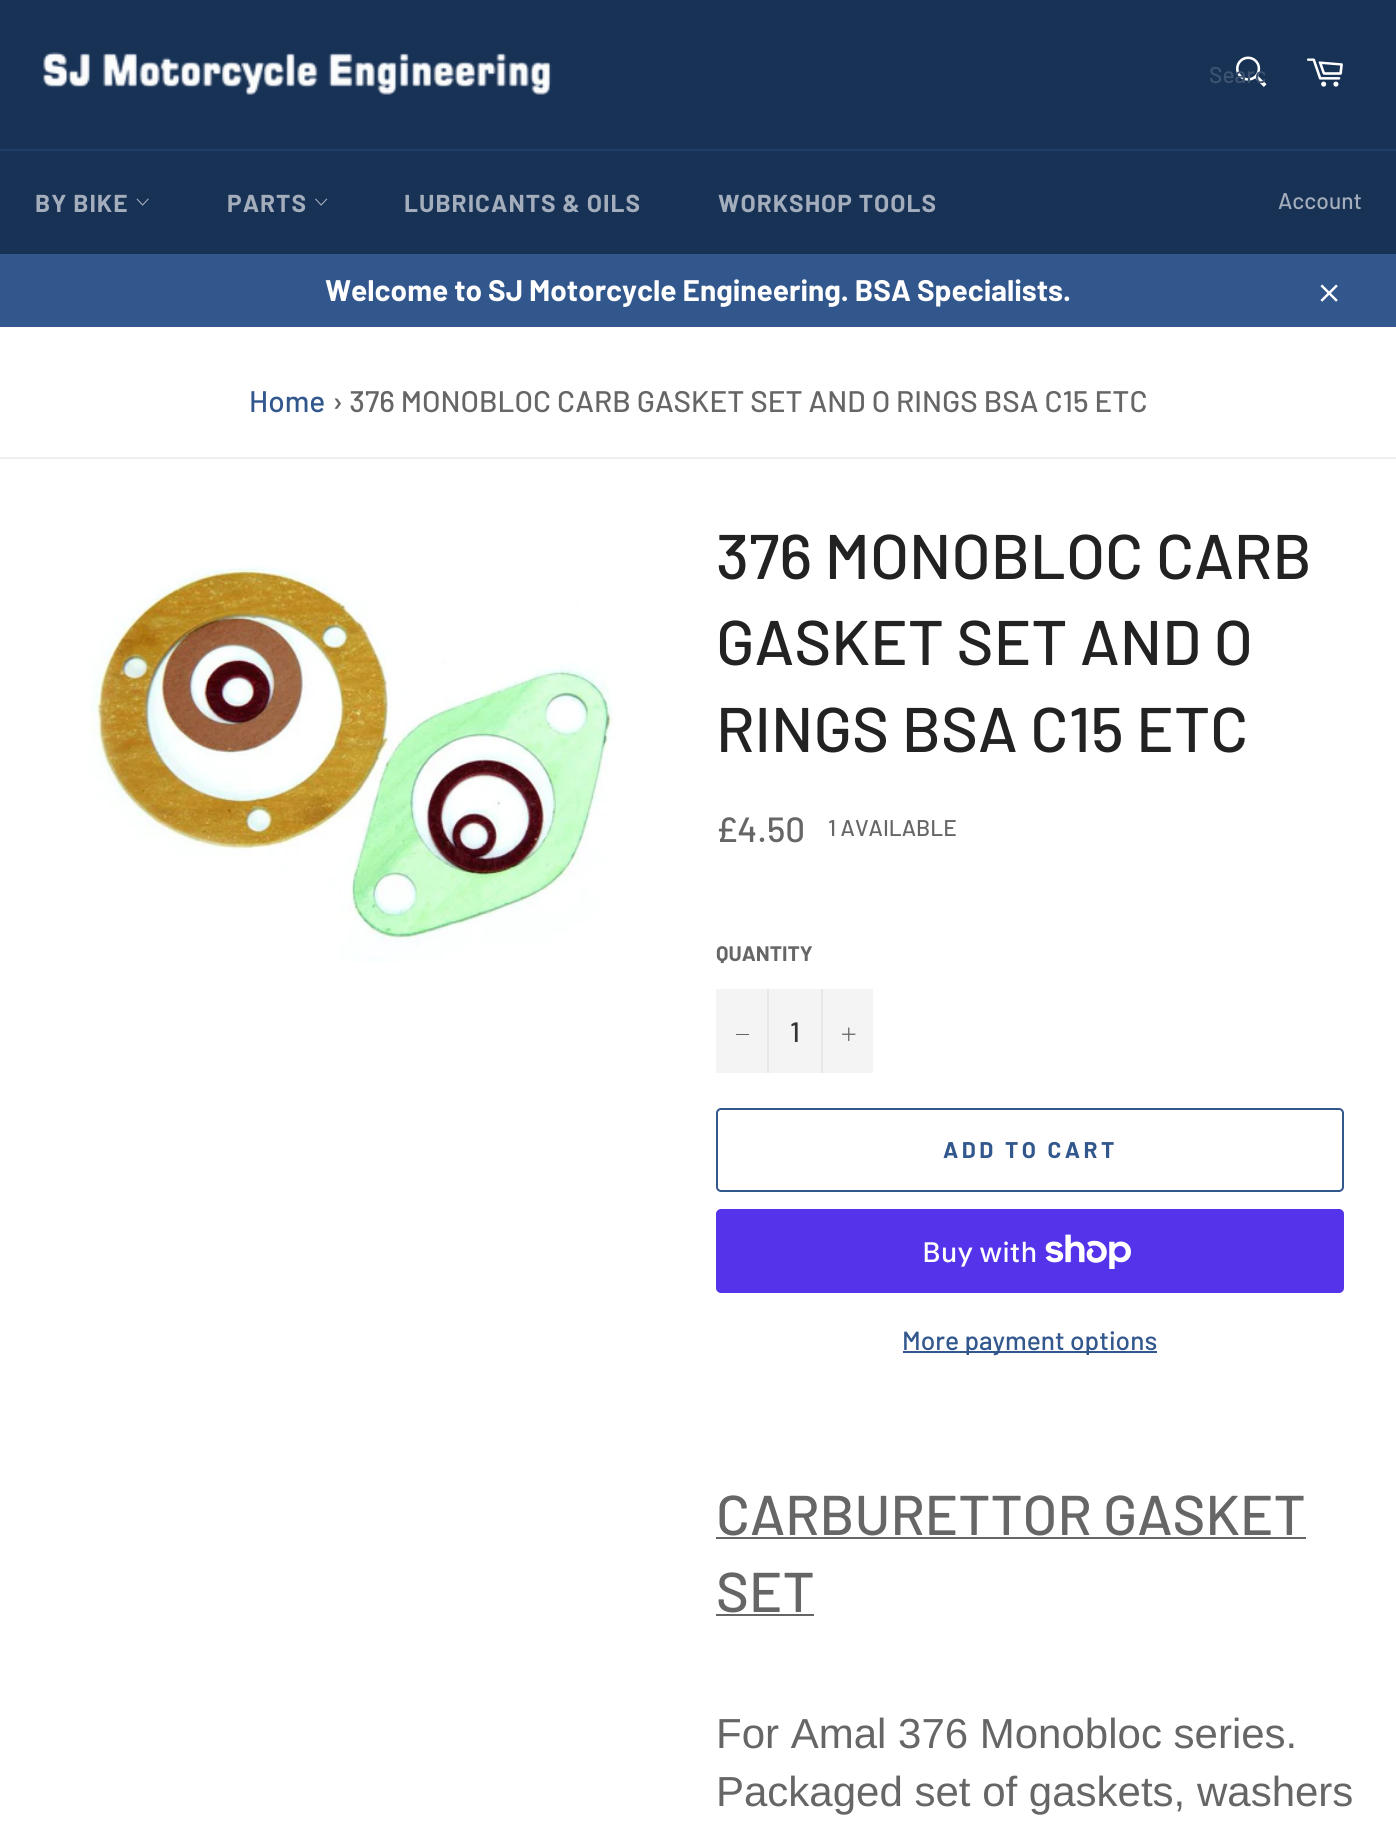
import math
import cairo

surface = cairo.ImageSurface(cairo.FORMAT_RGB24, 1396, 1833)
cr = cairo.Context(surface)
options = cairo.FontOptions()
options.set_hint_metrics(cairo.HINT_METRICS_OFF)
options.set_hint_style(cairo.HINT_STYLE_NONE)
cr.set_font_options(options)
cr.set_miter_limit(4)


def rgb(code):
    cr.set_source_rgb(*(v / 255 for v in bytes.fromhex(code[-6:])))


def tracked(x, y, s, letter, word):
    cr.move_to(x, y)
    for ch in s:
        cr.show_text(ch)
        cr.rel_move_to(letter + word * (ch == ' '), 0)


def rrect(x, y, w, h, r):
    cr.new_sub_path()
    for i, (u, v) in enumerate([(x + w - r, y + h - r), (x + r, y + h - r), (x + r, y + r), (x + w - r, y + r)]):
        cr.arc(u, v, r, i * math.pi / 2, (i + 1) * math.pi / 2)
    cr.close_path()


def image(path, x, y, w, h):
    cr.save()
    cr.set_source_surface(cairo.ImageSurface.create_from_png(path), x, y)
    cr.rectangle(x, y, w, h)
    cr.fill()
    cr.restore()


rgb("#ffffff")
cr.paint()
rgb("#183255")
cr.rectangle(0, 0, 1396, 149)
cr.fill()
image("img/1.png", 43, 52, 509, 43)
image("img/2.png", 1236, 56, 31, 31)
image("img/3.png", 1306, 58, 37, 29)
cr.rectangle(0, 151, 1396, 103)
cr.fill()
rgb("#1e3e69")
cr.rectangle(0, 149, 1396, 2)
cr.fill()
image("img/4.png", 136, 198, 13, 8)
image("img/5.png", 315, 198, 13, 8)
rgb("#31578d")
cr.rectangle(0, 254, 1396, 73)
cr.fill()
image("img/6.png", 1320, 284, 18, 18)
rgb("#efefef")
cr.rectangle(0, 457, 1396, 2)
cr.fill()
image("img/7.png", 90, 566, 527, 396)
for x, y, w, h, color in [
    (716, 989, 157, 84, "#f4f4f4"),
    (767, 989, 2, 84, "#e7e7e7"),
    (736, 1034, 13, 1, "#666666"),
    (821, 989, 2, 84, "#e7e7e7"),
]:
    rgb(color)
    cr.rectangle(x, y, w, h)
    cr.fill()
image("img/8.png", 842, 1027, 14, 14)
rrect(717, 1109, 626, 82, 4)
rgb("#31578d")
cr.stroke()
rgb("#5433eb")
rrect(716, 1209, 628, 84, 5)
cr.fill()
image("img/9.png", 1045, 1234, 86, 35)
for x, y, w, h, color in [
    (903, 1351, 254, 2, "#31578d"),
    (716, 1537, 590, 2, "#666666"),
    (716, 1614, 98, 2, "#666666"),
]:
    rgb(color)
    cr.rectangle(x, y, w, h)
    cr.fill()
cr.save()
cr.rectangle(1209, 61, 56, 28)
cr.clip()
cr.select_font_face("Barlow Medium")
cr.set_font_size(22.75)
rgb("#3d5370")
cr.move_to(1209, 83)
cr.show_text("Searc")
cr.restore()
cr.select_font_face("Barlow", cairo.FONT_SLANT_NORMAL, cairo.FONT_WEIGHT_BOLD)
cr.set_font_size(24.5)
rgb("#a3adbb")
for x, y, s in [
    (35, 212, "BY BIKE"),
    (227, 212, "PARTS"),
    (404, 212, "LUBRICANTS & OILS"),
    (718, 212, "WORKSHOP TOOLS"),
]:
    tracked(x, y, s, 1, 0)
cr.select_font_face("Barlow Medium")
cr.set_font_size(22.75)
cr.move_to(1278, 209)
cr.show_text("Account")
cr.select_font_face("Barlow", cairo.FONT_SLANT_NORMAL, cairo.FONT_WEIGHT_BOLD)
cr.set_font_size(29.75)
rgb("#ffffff")
cr.move_to(325, 301)
cr.show_text("Welcome to SJ Motorcycle Engineering. BSA Specialists.")
cr.select_font_face("Barlow Medium")
rgb("#31578d")
cr.move_to(249, 412)
cr.show_text("Home")
rgb("#666666")
cr.move_to(332, 412)
cr.show_text("› 376 MONOBLOC CARB GASKET SET AND O RINGS BSA C15 ETC")
cr.set_font_size(63)
rgb("#222222")
for x, y, s in [
    (716, 579, "376 MONOBLOC CARB"),
    (716, 665, "GASKET SET AND O"),
    (716, 752, "RINGS BSA C15 ETC"),
]:
    cr.move_to(x, y)
    cr.show_text(s)
cr.set_font_size(35)
rgb("#666666")
cr.move_to(716, 842)
cr.show_text("£4.50")
cr.set_font_size(22.75)
cr.move_to(828, 836)
cr.show_text("1 AVAILABLE")
cr.select_font_face("Barlow", cairo.FONT_SLANT_NORMAL, cairo.FONT_WEIGHT_BOLD)
cr.set_font_size(21)
cr.move_to(716, 961)
cr.show_text("QUANTITY")
cr.select_font_face("Barlow Medium")
cr.set_font_size(28)
rgb("#333333")
cr.move_to(790, 1042)
cr.show_text("1")
cr.select_font_face("Barlow", cairo.FONT_SLANT_NORMAL, cairo.FONT_WEIGHT_BOLD)
cr.set_font_size(22.75)
rgb("#31578d")
tracked(943, 1158, "ADD TO CART", 3.5, 0)
cr.select_font_face("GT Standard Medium")
cr.set_font_size(28)
rgb("#ffffff")
cr.move_to(922, 1262)
cr.show_text("Buy with")
cr.select_font_face("Barlow Medium")
cr.set_font_size(26.25)
rgb("#31578d")
cr.move_to(902, 1350)
cr.show_text("More payment options")
cr.set_font_size(56)
rgb("#666666")
cr.move_to(716, 1535)
cr.show_text("CARBURETTOR GASKET")
cr.move_to(716, 1612)
cr.show_text("SET")
cr.select_font_face("Liberation Sans")
cr.set_font_size(42)
cr.move_to(716, 1748)
cr.show_text("For Amal 376 Monobloc series.")
cr.move_to(716, 1806)
cr.show_text("Packaged set of gaskets, washers")
surface.write_to_png("page.png")
